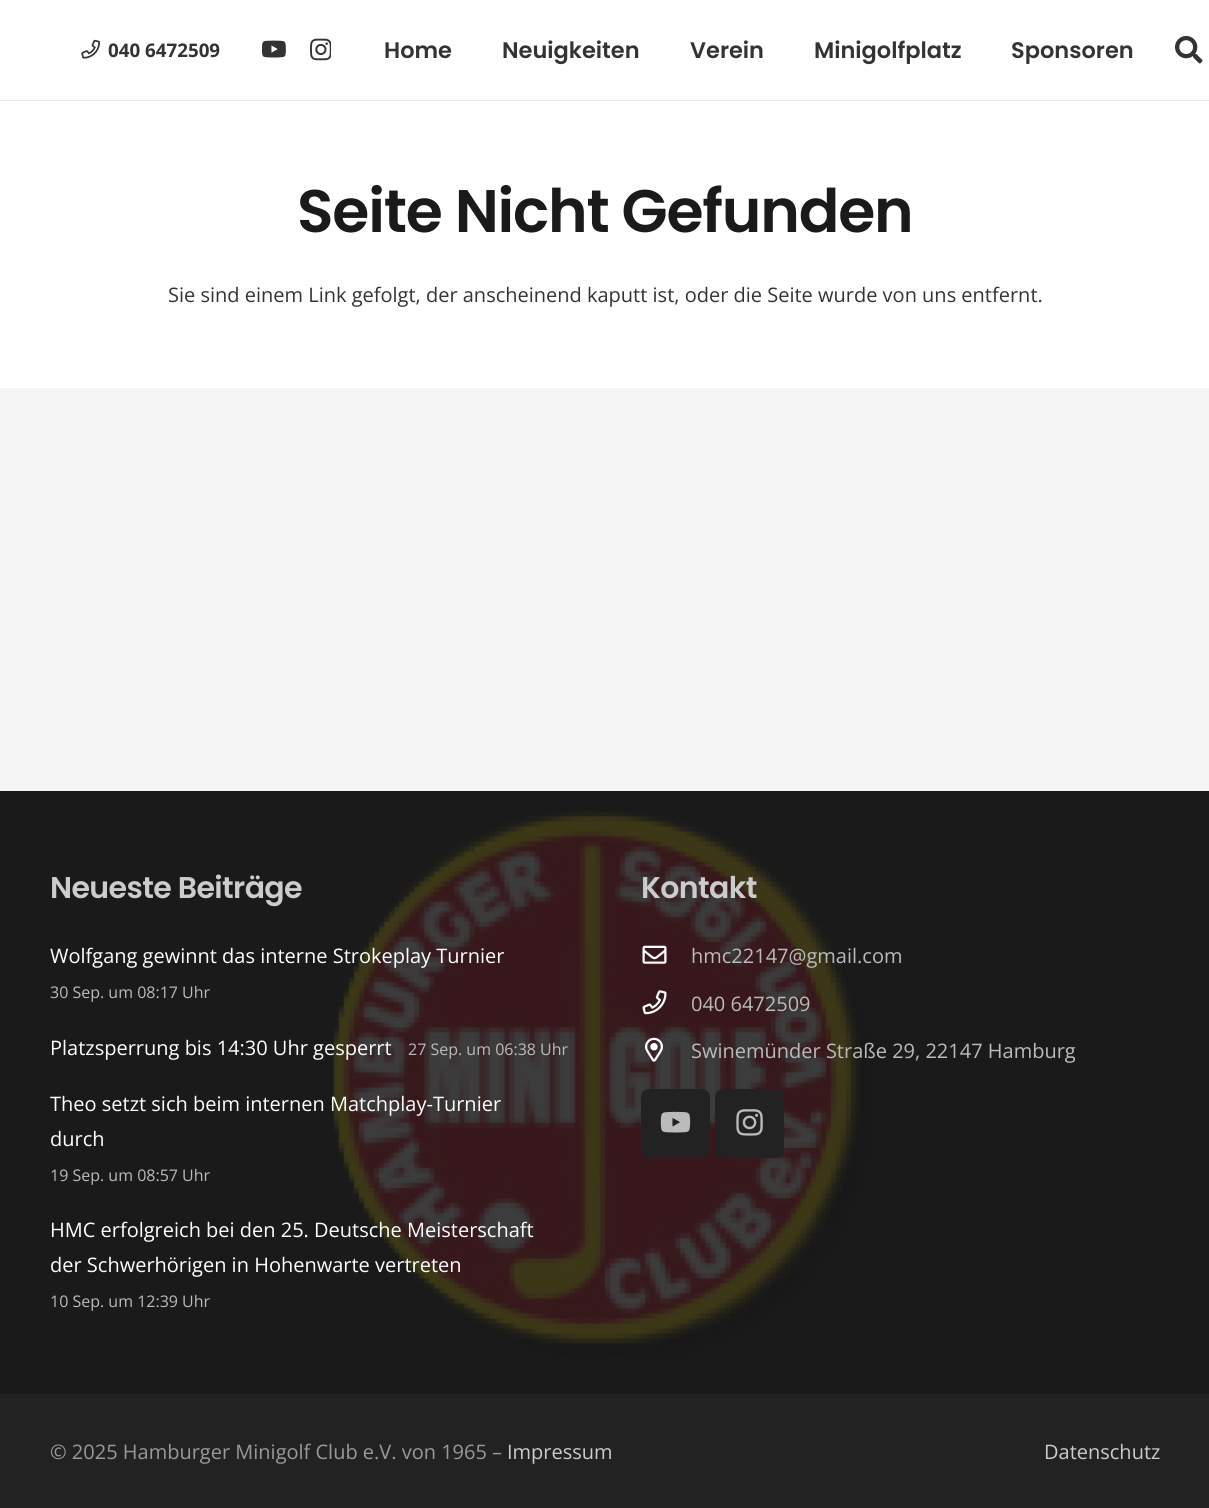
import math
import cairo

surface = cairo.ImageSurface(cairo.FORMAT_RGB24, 1209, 1508)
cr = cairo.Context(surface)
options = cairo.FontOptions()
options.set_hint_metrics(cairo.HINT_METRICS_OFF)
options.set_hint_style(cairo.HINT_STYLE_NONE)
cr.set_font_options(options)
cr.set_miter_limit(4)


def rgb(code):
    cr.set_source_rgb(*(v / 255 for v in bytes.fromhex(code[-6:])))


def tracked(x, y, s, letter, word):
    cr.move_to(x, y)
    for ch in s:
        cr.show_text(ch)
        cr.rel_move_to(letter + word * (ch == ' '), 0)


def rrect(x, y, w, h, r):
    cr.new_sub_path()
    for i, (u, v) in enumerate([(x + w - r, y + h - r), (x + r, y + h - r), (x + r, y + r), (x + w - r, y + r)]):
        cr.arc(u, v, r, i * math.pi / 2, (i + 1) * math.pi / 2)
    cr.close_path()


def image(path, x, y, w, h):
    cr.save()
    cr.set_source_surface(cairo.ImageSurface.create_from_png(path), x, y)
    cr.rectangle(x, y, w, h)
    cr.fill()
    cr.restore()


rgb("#f5f5f5")
cr.paint()
rgb("#ffffff")
cr.rectangle(0, 0, 1209, 388)
cr.fill()
rgb("#ebebeb")
cr.rectangle(0, 100, 1209, 1)
cr.fill()
image("img/1.png", 81, 39, 19, 20)
image("img/2.png", 261, 40, 25, 18)
image("img/3.png", 310, 38, 21, 23)
image("img/4.png", 1175, 35, 28, 29)
rgb("#1a1a1a")
cr.rectangle(0, 791, 1209, 603)
cr.fill()
image("img/5.png", 333, 811, 542, 552)
image("img/6.png", 642, 945, 25, 19)
image("img/7.png", 642, 990, 25, 25)
image("img/8.png", 645, 1037, 18, 25)
rgb("#222222")
rrect(641, 1089, 69, 69, 8)
cr.fill()
image("img/9.png", 660, 1111, 31, 22)
rrect(715, 1089, 69, 69, 8)
cr.fill()
image("img/10.png", 736, 1109, 27, 27)
cr.rectangle(0, 1394, 1209, 114)
cr.fill()
cr.select_font_face("Open Sans", cairo.FONT_SLANT_NORMAL, cairo.FONT_WEIGHT_BOLD)
cr.set_font_size(18.75)
rgb("#333333")
cr.move_to(108, 57)
cr.show_text("040 6472509")
cr.select_font_face("Poppins SemiBold")
cr.set_font_size(22.5)
for x, y, s in [
    (384, 58, "Home"),
    (502, 58, "Neuigkeiten"),
    (690, 58, "Verein"),
    (814, 58, "Minigolfplatz"),
    (1011, 58, "Sponsoren"),
]:
    cr.move_to(x, y)
    cr.show_text(s)
cr.set_font_size(60)
rgb("#1a1a1a")
tracked(297, 232, "Seite Nicht Gefunden", -1.2, 0)
cr.select_font_face("Open Sans")
cr.set_font_size(20)
rgb("#333333")
cr.move_to(168, 302)
cr.show_text("Sie sind einem Link gefolgt, der anscheinend kaputt ist, oder die Seite wurde von uns entfernt.")
cr.select_font_face("Poppins SemiBold")
cr.set_font_size(30)
rgb("#cccccc")
tracked(50, 898, "Neueste Beiträge", -0.6, 0)
cr.select_font_face("Open Sans")
cr.set_font_size(20)
rgb("#ffffff")
cr.move_to(50, 963)
cr.show_text("Wolfgang gewinnt das interne Strokeplay Turnier")
cr.set_font_size(16)
rgb("#bbbbbb")
cr.move_to(50, 998)
cr.show_text("30 Sep. um 08:17 Uhr")
cr.set_font_size(20)
rgb("#ffffff")
cr.move_to(50, 1055)
cr.show_text("Platzsperrung bis 14:30 Uhr gesperrt")
cr.set_font_size(16)
rgb("#bbbbbb")
cr.move_to(408, 1055)
cr.show_text("27 Sep. um 06:38 Uhr")
cr.set_font_size(20)
rgb("#ffffff")
cr.move_to(50, 1111)
cr.show_text("Theo setzt sich beim internen Matchplay-Turnier")
cr.move_to(50, 1146)
cr.show_text("durch")
cr.set_font_size(16)
rgb("#bbbbbb")
cr.move_to(50, 1181)
cr.show_text("19 Sep. um 08:57 Uhr")
cr.set_font_size(20)
rgb("#ffffff")
cr.move_to(50, 1237)
cr.show_text("HMC erfolgreich bei den 25. Deutsche Meisterschaft")
cr.move_to(50, 1272)
cr.show_text("der Schwerhörigen in Hohenwarte vertreten")
cr.set_font_size(16)
rgb("#bbbbbb")
cr.move_to(50, 1307)
cr.show_text("10 Sep. um 12:39 Uhr")
cr.select_font_face("Poppins SemiBold")
cr.set_font_size(30)
rgb("#cccccc")
tracked(641, 898, "Kontakt", -0.6, 0)
cr.select_font_face("Open Sans")
cr.set_font_size(20)
rgb("#bbbbbb")
for x, y, s in [
    (691, 963, "hmc22147@gmail.com"),
    (691, 1011, "040 6472509"),
    (691, 1058, "Swinemünder Straße 29, 22147 Hamburg"),
]:
    cr.move_to(x, y)
    cr.show_text(s)
rgb("#999999")
cr.move_to(50, 1459)
cr.show_text("© 2025 Hamburger Minigolf Club e.V. von 1965 –")
rgb("#cccccc")
cr.move_to(507, 1459)
cr.show_text("Impressum")
cr.move_to(1044, 1459)
cr.show_text("Datenschutz")
surface.write_to_png("page.png")
